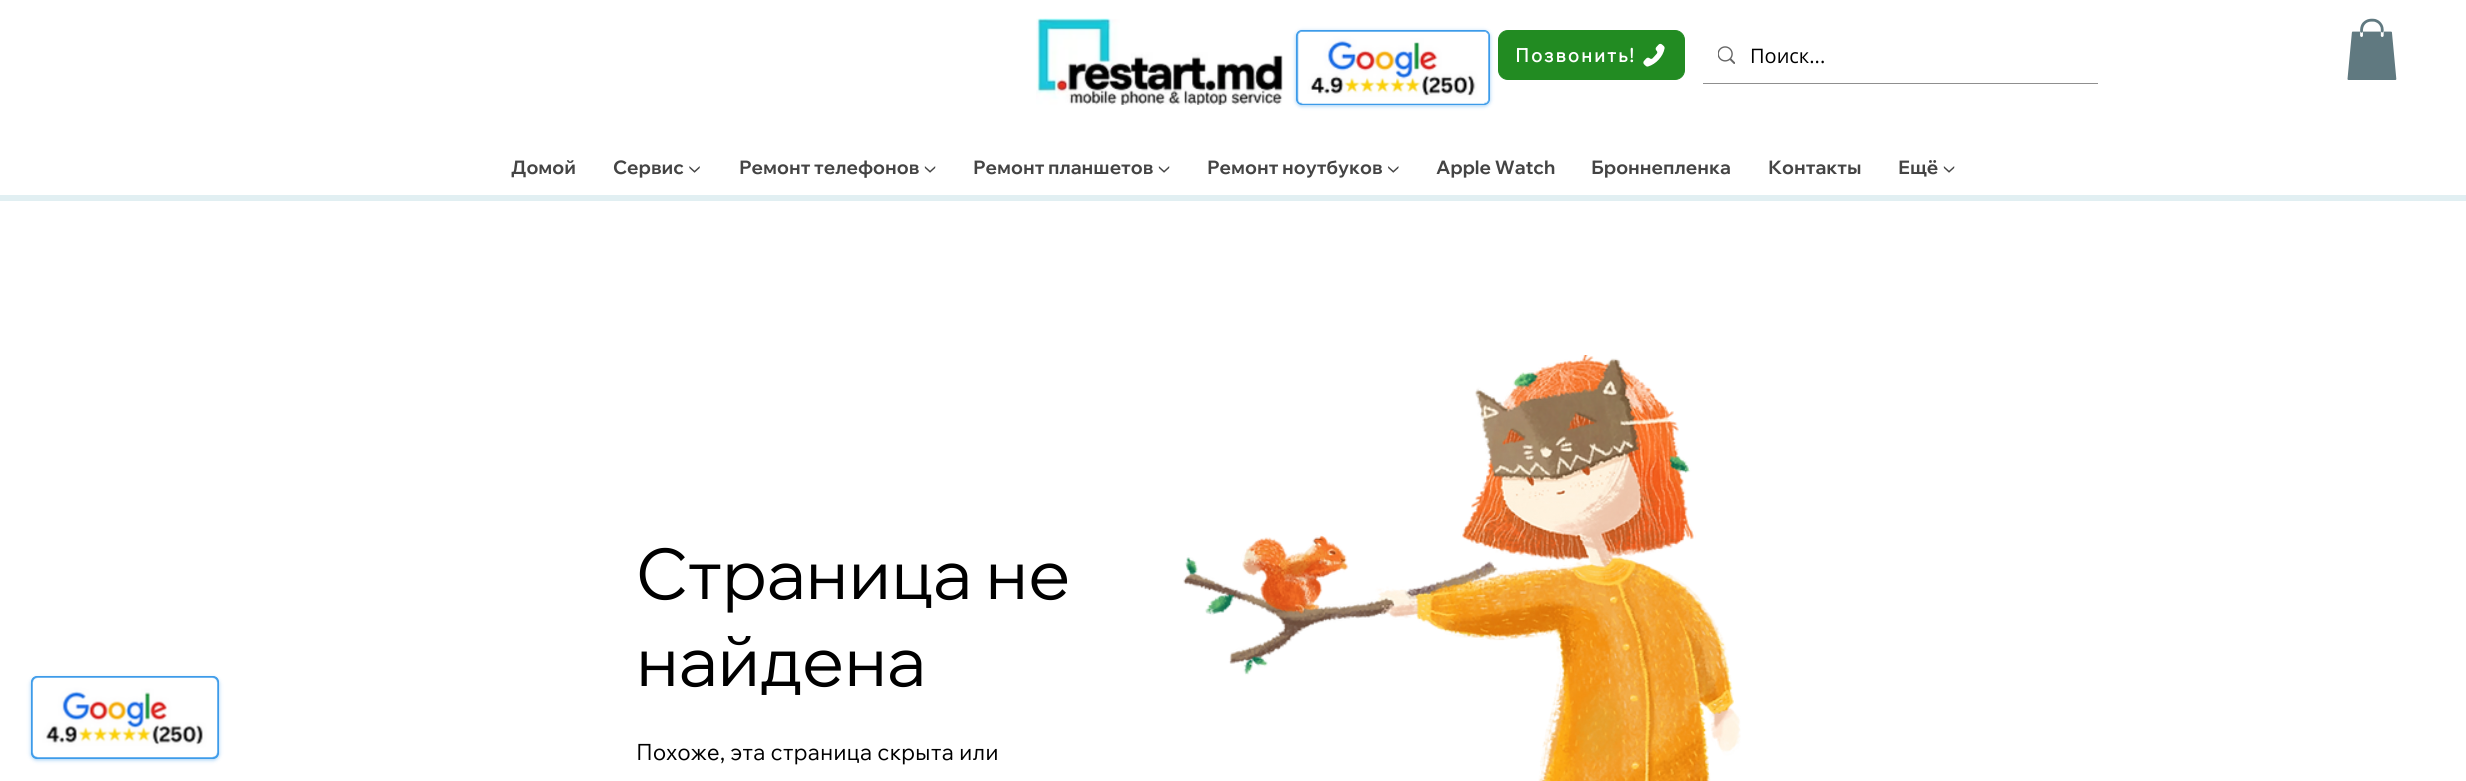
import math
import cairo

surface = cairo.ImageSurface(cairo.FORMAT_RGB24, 2466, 781)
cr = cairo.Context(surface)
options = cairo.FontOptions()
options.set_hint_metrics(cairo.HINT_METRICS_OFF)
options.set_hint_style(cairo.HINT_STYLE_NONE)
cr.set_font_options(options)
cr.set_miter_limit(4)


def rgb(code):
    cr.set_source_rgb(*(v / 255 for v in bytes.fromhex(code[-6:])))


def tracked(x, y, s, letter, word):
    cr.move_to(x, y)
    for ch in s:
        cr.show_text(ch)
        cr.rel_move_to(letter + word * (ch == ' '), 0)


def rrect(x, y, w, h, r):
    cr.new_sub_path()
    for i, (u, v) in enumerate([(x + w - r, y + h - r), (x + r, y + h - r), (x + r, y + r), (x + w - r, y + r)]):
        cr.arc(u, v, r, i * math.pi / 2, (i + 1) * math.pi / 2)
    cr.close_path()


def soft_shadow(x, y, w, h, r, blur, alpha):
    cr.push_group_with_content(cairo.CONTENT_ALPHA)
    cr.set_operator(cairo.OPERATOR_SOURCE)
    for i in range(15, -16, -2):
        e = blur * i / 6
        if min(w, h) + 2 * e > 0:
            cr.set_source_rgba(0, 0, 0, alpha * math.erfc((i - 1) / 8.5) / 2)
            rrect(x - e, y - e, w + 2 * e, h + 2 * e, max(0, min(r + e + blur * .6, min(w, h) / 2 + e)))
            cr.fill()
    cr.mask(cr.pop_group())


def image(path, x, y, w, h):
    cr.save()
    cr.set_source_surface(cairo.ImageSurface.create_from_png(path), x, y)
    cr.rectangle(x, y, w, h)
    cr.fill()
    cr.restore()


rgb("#ffffff")
cr.paint()
image("img/1.png", 1036, 18, 247, 87)
rgb("#3d9be9")
soft_shadow(1296, 31, 194, 75, 6, 2, 0.5)
rgb("#3d9be9")
rrect(1296.5, 30.5, 193, 74, 5.5)
cr.fill_preserve()
cr.set_line_width(1)
cr.stroke()
image("img/2.png", 1297, 31, 192, 73)
rgb("#228b22")
rrect(1498.5, 30.5, 186, 49, 9.5)
cr.fill_preserve()
cr.stroke()
image("img/3.png", 1643, 43, 22, 24)
rgb("#8f8f8f")
cr.rectangle(1703, 83, 395, 1)
cr.fill()
image("img/4.png", 1718, 46, 17, 18)
image("img/5.png", 2347, 18, 50, 62)
rgb("#e1eff2")
cr.rectangle(0, 195, 2466, 6)
cr.fill()
rgb("#3d9be9")
soft_shadow(31, 678, 188, 82, 6, 2, 0.5)
rgb("#3d9be9")
rrect(31.5, 676.5, 187, 82, 5.5)
cr.fill_preserve()
cr.stroke()
image("img/6.png", 32, 677, 186, 81)
image("img/7.png", 1183, 355, 558, 426)
cr.select_font_face("Wix Madefor Text", cairo.FONT_SLANT_NORMAL, cairo.FONT_WEIGHT_BOLD)
cr.set_font_size(18.75)
rgb("#ffffff")
tracked(1515, 62, "Позвонить!", 1.9, 0)
cr.select_font_face("Open Sans")
cr.set_font_size(20)
rgb("#000000")
cr.move_to(1750, 63)
cr.show_text("Поиск...")
cr.select_font_face("Wix Madefor Display", cairo.FONT_SLANT_NORMAL, cairo.FONT_WEIGHT_BOLD)
cr.set_font_size(18.75)
rgb("#444444")
for x, y, s in [
    (511, 174, "Домой"),
    (613, 174, "Сервис ▼"),
    (739, 174, "Ремонт телефонов ▼"),
    (973, 174, "Ремонт планшетов ▼"),
    (1207, 174, "Ремонт ноутбуков ▼"),
    (1436, 174, "Apple Watch"),
    (1591, 174, "Броннепленка"),
    (1768, 174, "Контакты"),
    (1898, 174, "Ещё ▼"),
]:
    cr.move_to(x, y)
    cr.show_text(s)
cr.select_font_face("Wix Madefor Display")
cr.set_font_size(70)
rgb("#000000")
cr.move_to(636, 599)
cr.show_text("Страница не")
cr.move_to(636, 686)
cr.show_text("найдена")
cr.select_font_face("Wix Madefor Text")
cr.set_font_size(22.5)
cr.move_to(636, 760)
cr.show_text("Похоже, эта страница скрыта или")
surface.write_to_png("page.png")
